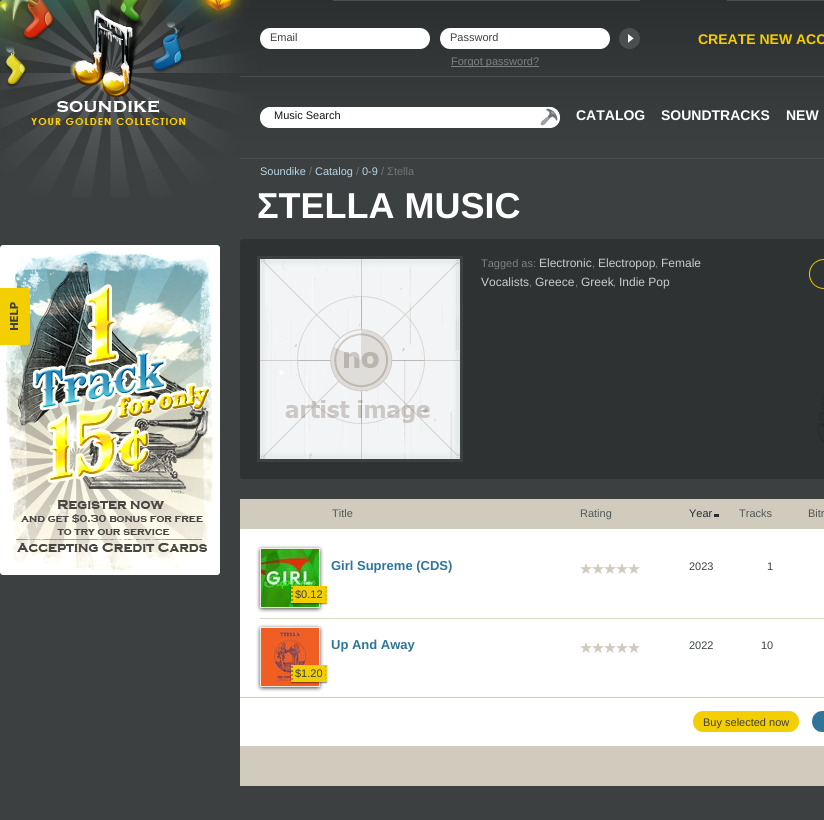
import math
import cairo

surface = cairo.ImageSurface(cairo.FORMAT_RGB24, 824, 820)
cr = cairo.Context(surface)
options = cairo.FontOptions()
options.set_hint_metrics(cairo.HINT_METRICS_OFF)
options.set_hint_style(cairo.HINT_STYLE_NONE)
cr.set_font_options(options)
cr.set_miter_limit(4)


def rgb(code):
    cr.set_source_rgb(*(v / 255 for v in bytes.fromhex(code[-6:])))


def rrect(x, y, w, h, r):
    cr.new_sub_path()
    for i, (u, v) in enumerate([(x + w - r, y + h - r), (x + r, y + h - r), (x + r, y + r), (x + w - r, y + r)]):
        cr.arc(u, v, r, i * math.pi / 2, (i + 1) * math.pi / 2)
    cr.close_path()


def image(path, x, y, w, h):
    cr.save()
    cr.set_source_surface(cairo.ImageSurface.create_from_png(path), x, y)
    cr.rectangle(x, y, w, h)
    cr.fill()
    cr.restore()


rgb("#3c4041")
cr.paint()
image("img/1.png", 0, 0, 824, 197)
image("img/8.png", 0, 245, 220, 330)
image("img/2.png", 0, 288, 30, 57)
image("img/3.png", 31, 3, 155, 122)
rgb("#4b4e4e")
cr.rectangle(333, 0, 307, 1)
cr.fill()
cr.rectangle(727, 0, 97, 1)
cr.fill()
image("img/4.png", 260, 28, 160, 21)
image("img/5.png", 420, 28, 10, 21)
image("img/4.png", 440, 28, 160, 21)
image("img/5.png", 600, 28, 10, 21)
image("img/6.png", 619, 28, 21, 21)
for x, y, w, h, color in [
    (451, 66, 88, 1, "#7d8080"),
    (240, 76, 584, 1, "#4b4e4e"),
    (240, 158, 584, 1, "#4b4e4e"),
]:
    rgb(color)
    cr.rectangle(x, y, w, h)
    cr.fill()
rgb("#ffffff")
rrect(260, 107, 300, 21, 10.5)
cr.fill()
image("img/7.png", 259, 107, 302, 21)
rgb("#2f3233")
cr.rectangle(240, 239, 584, 240)
cr.fill()
image("img/9.png", 817, 395, 7, 48)
image("img/10.png", 240, 239, 2, 2)
rgb("#3c4041")
cr.rectangle(257, 256, 206, 206)
cr.fill()
image("img/11.png", 260, 259, 200, 200)
image("img/12.png", 809, 259, 14, 30)
image("img/13.png", 823, 259, 1, 30)
image("img/14.png", 240, 477, 2, 2)
for x, y, w, h, color in [
    (240, 529, 584, 217, "#ffffff"),
    (240, 499, 584, 30, "#d0cbbc"),
    (714, 514, 5, 3, "#242e33"),
    (260, 618, 564, 1, "#ddd8ca"),
]:
    rgb(color)
    cr.rectangle(x, y, w, h)
    cr.fill()
image("img/15.png", 580, 563, 60, 11)
image("img/16.png", 256, 545, 68, 68)
image("img/17.png", 290, 586, 35, 19)
image("img/18.png", 325, 586, 3, 19)
image("img/15.png", 580, 642, 60, 11)
image("img/19.png", 256, 624, 68, 68)
image("img/20.png", 290, 665, 35, 19)
image("img/18.png", 325, 665, 3, 19)
rgb("#d0cbbc")
cr.rectangle(240, 697, 584, 1)
cr.fill()
image("img/21.png", 693, 711, 10, 21)
rgb("#f3ce00")
cr.rectangle(703, 711, 86, 21)
cr.fill()
image("img/22.png", 789, 711, 10, 21)
image("img/23.png", 812, 711, 10, 21)
rgb("#2e7599")
cr.rectangle(822, 711, 2, 21)
cr.fill()
rgb("#d0cbbc")
cr.rectangle(240, 746, 584, 40)
cr.fill()
cr.select_font_face("Liberation Sans")
cr.set_font_size(11)
rgb("#3c4041")
cr.move_to(270, 41)
cr.show_text("Email")
cr.move_to(450, 41)
cr.show_text("Password")
cr.select_font_face("Liberation Sans", cairo.FONT_SLANT_NORMAL, cairo.FONT_WEIGHT_BOLD)
cr.set_font_size(14)
rgb("#f3ce00")
cr.move_to(698, 44)
cr.show_text("CREATE NEW ACC")
cr.select_font_face("Liberation Sans")
cr.set_font_size(11)
rgb("#7d8080")
cr.move_to(451, 65)
cr.show_text("Forgot password?")
rgb("#121718")
cr.move_to(274, 119)
cr.show_text("Music Search")
cr.select_font_face("Liberation Sans", cairo.FONT_SLANT_NORMAL, cairo.FONT_WEIGHT_BOLD)
cr.set_font_size(14)
rgb("#ffffff")
for x, y, s in [
    (576, 120, "CATALOG"),
    (661, 120, "SOUNDTRACKS"),
    (786, 120, "NEW"),
]:
    cr.move_to(x, y)
    cr.show_text(s)
cr.select_font_face("Liberation Sans")
cr.set_font_size(11)
rgb("#b8d6e6")
cr.move_to(260, 175)
cr.show_text("Soundike")
rgb("#737676")
cr.move_to(309, 175)
cr.show_text("/")
rgb("#b8d6e6")
cr.move_to(315, 175)
cr.show_text("Catalog")
rgb("#737676")
cr.move_to(356, 175)
cr.show_text("/")
rgb("#b8d6e6")
cr.move_to(362, 175)
cr.show_text("0-9")
rgb("#737676")
cr.move_to(381, 175)
cr.show_text("/ Σtella")
cr.select_font_face("Liberation Sans", cairo.FONT_SLANT_NORMAL, cairo.FONT_WEIGHT_BOLD)
cr.set_font_size(36)
rgb("#ffffff")
cr.move_to(257, 218)
cr.show_text("ΣTELLA MUSIC")
cr.select_font_face("Liberation Sans")
cr.set_font_size(11)
rgb("#7d8080")
cr.move_to(481, 267)
cr.show_text("Tagged as:")
cr.set_font_size(12)
rgb("#c8cccc")
cr.move_to(539, 267)
cr.show_text("Electronic")
cr.set_font_size(11)
rgb("#7d8080")
cr.move_to(592, 267)
cr.show_text(",")
cr.set_font_size(12)
rgb("#c8cccc")
cr.move_to(598, 267)
cr.show_text("Electropop")
cr.set_font_size(11)
rgb("#7d8080")
cr.move_to(655, 267)
cr.show_text(",")
cr.set_font_size(12)
rgb("#c8cccc")
cr.move_to(661, 267)
cr.show_text("Female")
cr.move_to(481, 286)
cr.show_text("Vocalists")
cr.set_font_size(11)
rgb("#7d8080")
cr.move_to(529, 286)
cr.show_text(",")
cr.set_font_size(12)
rgb("#c8cccc")
cr.move_to(535, 286)
cr.show_text("Greece")
cr.set_font_size(11)
rgb("#7d8080")
cr.move_to(575, 286)
cr.show_text(",")
cr.set_font_size(12)
rgb("#c8cccc")
cr.move_to(581, 286)
cr.show_text("Greek")
cr.set_font_size(11)
rgb("#7d8080")
cr.move_to(613, 286)
cr.show_text(",")
cr.set_font_size(12)
rgb("#c8cccc")
cr.move_to(619, 286)
cr.show_text("Indie Pop")
cr.set_font_size(11)
rgb("#525859")
cr.move_to(332, 517)
cr.show_text("Title")
cr.move_to(580, 517)
cr.show_text("Rating")
rgb("#242e33")
cr.move_to(689, 517)
cr.show_text("Year")
rgb("#525859")
cr.move_to(739, 517)
cr.show_text("Tracks")
cr.move_to(808, 517)
cr.show_text("Bitr")
cr.select_font_face("Liberation Sans", cairo.FONT_SLANT_NORMAL, cairo.FONT_WEIGHT_BOLD)
cr.set_font_size(13)
rgb("#2e7599")
cr.move_to(331, 570)
cr.show_text("Girl Supreme (CDS)")
cr.select_font_face("Liberation Sans")
cr.set_font_size(11)
rgb("#3c4041")
for x, y, s in [
    (689, 570, "2023"),
    (767, 570, "1"),
    (295, 598, "$0.12"),
]:
    cr.move_to(x, y)
    cr.show_text(s)
cr.select_font_face("Liberation Sans", cairo.FONT_SLANT_NORMAL, cairo.FONT_WEIGHT_BOLD)
cr.set_font_size(13)
rgb("#2e7599")
cr.move_to(331, 649)
cr.show_text("Up And Away")
cr.select_font_face("Liberation Sans")
cr.set_font_size(11)
rgb("#3c4041")
for x, y, s in [
    (689, 649, "2022"),
    (761, 649, "10"),
    (295, 677, "$1.20"),
    (703, 726, "Buy selected now"),
]:
    cr.move_to(x, y)
    cr.show_text(s)
surface.write_to_png("page.png")
